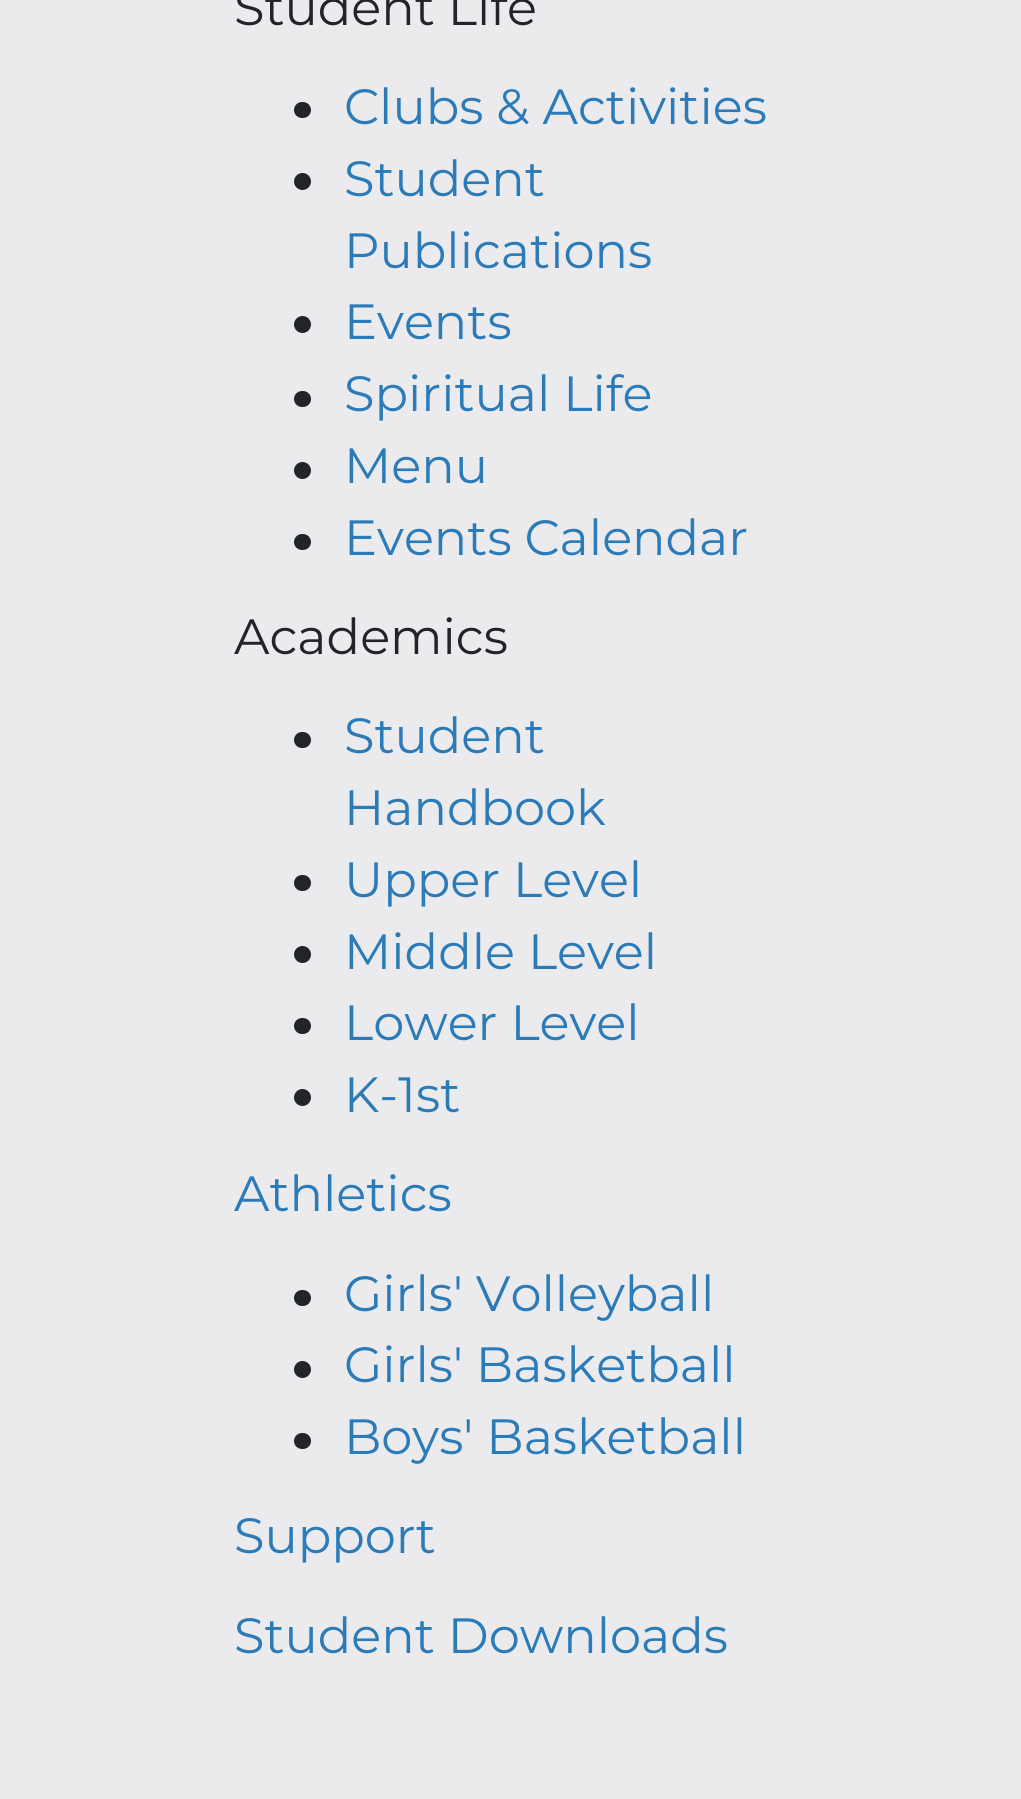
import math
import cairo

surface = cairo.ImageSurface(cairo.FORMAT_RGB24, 1021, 1799)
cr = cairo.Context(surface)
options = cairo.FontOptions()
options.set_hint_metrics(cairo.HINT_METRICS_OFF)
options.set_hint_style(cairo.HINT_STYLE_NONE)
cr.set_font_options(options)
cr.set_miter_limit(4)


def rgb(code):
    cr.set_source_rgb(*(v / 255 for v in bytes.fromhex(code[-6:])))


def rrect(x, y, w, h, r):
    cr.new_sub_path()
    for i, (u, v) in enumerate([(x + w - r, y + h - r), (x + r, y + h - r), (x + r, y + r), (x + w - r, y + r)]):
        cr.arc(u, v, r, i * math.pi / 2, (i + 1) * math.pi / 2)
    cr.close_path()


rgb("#ebebed")
cr.paint()
rgb("#212529")
rrect(294, 102, 17, 16, 8)
cr.fill()
cr.arc(302.5, 181.5, 8.5, 0, 2 * math.pi)
cr.fill()
cr.arc(302.5, 324.5, 8.5, 0, 2 * math.pi)
cr.fill()
rrect(294, 391, 17, 16, 8)
cr.fill()
cr.arc(302.5, 470.5, 8.5, 0, 2 * math.pi)
cr.fill()
rrect(294, 534, 17, 16, 8)
cr.fill()
rrect(294, 732, 17, 16, 8)
cr.fill()
rrect(294, 875, 17, 16, 8)
cr.fill()
cr.arc(302.5, 954.5, 8.5, 0, 2 * math.pi)
cr.fill()
rrect(294, 1018, 17, 16, 8)
cr.fill()
cr.arc(302.5, 1097.5, 8.5, 0, 2 * math.pi)
cr.fill()
rrect(294, 1290, 17, 16, 8)
cr.fill()
cr.arc(302.5, 1369.5, 8.5, 0, 2 * math.pi)
cr.fill()
rrect(294, 1433, 17, 16, 8)
cr.fill()
cr.select_font_face("Montserrat")
cr.set_font_size(49.5)
cr.move_to(234, 25)
cr.show_text("Student Life")
rgb("#2b7bb9")
for x, y, s in [
    (344, 124, "Clubs & Activities"),
    (344, 196, "Student"),
    (344, 268, "Publications"),
    (344, 339, "Events"),
    (344, 411, "Spiritual Life"),
    (344, 483, "Menu"),
    (344, 555, "Events Calendar"),
]:
    cr.move_to(x, y)
    cr.show_text(s)
rgb("#212529")
cr.move_to(234, 654)
cr.show_text("Academics")
rgb("#2b7bb9")
for x, y, s in [
    (344, 753, "Student"),
    (344, 825, "Handbook"),
    (344, 897, "Upper Level"),
    (344, 969, "Middle Level"),
    (344, 1040, "Lower Level"),
    (344, 1112, "K-1st"),
    (234, 1211, "Athletics"),
    (344, 1311, "Girls' Volleyball"),
    (344, 1382, "Girls' Basketball"),
    (344, 1454, "Boys' Basketball"),
    (234, 1553, "Support"),
    (234, 1653, "Student Downloads"),
]:
    cr.move_to(x, y)
    cr.show_text(s)
surface.write_to_png("page.png")
